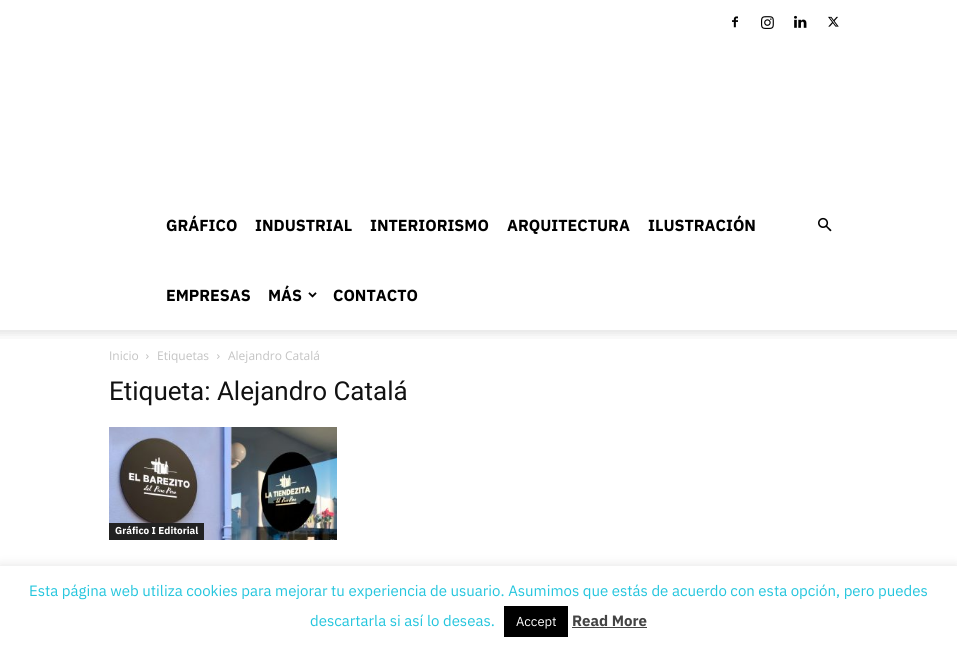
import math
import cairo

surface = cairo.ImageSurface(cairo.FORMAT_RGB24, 957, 649)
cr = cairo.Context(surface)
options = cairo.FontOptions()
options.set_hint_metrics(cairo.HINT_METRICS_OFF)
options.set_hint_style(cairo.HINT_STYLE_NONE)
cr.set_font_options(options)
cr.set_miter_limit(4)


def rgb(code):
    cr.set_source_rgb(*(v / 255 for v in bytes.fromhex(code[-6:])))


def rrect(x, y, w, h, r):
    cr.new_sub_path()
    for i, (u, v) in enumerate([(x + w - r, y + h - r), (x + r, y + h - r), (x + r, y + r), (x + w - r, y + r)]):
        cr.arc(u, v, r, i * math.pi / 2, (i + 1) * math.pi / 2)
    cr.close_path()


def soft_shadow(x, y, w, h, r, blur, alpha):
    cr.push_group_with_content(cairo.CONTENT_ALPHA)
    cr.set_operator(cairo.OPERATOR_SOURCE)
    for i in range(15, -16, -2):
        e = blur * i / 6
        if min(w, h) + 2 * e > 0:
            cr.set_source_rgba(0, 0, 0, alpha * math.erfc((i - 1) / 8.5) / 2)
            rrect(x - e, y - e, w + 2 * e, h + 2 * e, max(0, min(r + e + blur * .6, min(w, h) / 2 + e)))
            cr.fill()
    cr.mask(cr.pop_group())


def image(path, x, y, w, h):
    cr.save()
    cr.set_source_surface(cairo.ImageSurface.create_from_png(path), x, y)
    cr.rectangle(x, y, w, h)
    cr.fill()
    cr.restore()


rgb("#ffffff")
cr.paint()
image("img/1.png", 732, 16, 6, 12)
image("img/2.png", 761, 16, 13, 13)
image("img/3.png", 794, 15, 13, 13)
image("img/4.png", 828, 16, 11, 11)
image("img/5.png", 308, 292, 9, 6)
image("img/6.png", 818, 217, 14, 15)
image("img/7.png", 0, 330, 957, 9)
image("img/8.png", 146, 354, 3, 5)
image("img/8.png", 217, 354, 3, 5)
image("img/9.png", 109, 427, 228, 113)
rgb("#222222")
cr.rectangle(109, 523, 95, 17)
cr.fill()
rgb("#acabab")
soft_shadow(0, 565, 957, 83, 0, 5, 0.3)
for x, y, w, h, color in [
    (0, 566, 957, 83, "#ffffff"),
    (504, 606, 64, 31, "#000000"),
    (572, 627, 75, 1, "#444444"),
]:
    rgb(color)
    cr.rectangle(x, y, w, h)
    cr.fill()
cr.select_font_face("IBM Plex Sans", cairo.FONT_SLANT_NORMAL, cairo.FONT_WEIGHT_BOLD)
cr.set_font_size(16)
rgb("#000000")
for x, y, s in [
    (166, 231, "GRÁFICO"),
    (255, 231, "INDUSTRIAL"),
    (370, 231, "INTERIORISMO"),
    (507, 231, "ARQUITECTURA"),
    (648, 231, "ILUSTRACIÓN"),
    (166, 301, "EMPRESAS"),
    (268, 301, "MÁS"),
    (333, 301, "CONTACTO"),
]:
    cr.move_to(x, y)
    cr.show_text(s)
cr.select_font_face("Open Sans")
cr.set_font_size(12)
rgb("#c3c3c3")
for x, y, s in [
    (109, 360, "Inicio"),
    (157, 360, "Etiquetas"),
    (228, 360, "Alejandro Catalá"),
]:
    cr.move_to(x, y)
    cr.show_text(s)
cr.select_font_face("Roboto")
cr.set_font_size(26)
rgb("#111111")
cr.move_to(109, 400)
cr.show_text("Etiqueta: Alejandro Catalá")
cr.select_font_face("IBM Plex Sans", cairo.FONT_SLANT_NORMAL, cairo.FONT_WEIGHT_BOLD)
cr.set_font_size(10)
rgb("#ffffff")
cr.move_to(115, 534)
cr.show_text("Gráfico I Editorial")
cr.select_font_face("IBM Plex Sans")
cr.set_font_size(15)
rgb("#23c5dd")
cr.move_to(29, 596)
cr.show_text("Esta página web utiliza cookies para mejorar tu experiencia de usuario. Asumimos que estás de acuerdo con esta opción, pero puedes")
cr.move_to(310, 626)
cr.show_text("descartarla si así lo deseas.")
cr.set_font_size(13)
rgb("#ffffff")
cr.move_to(516, 626)
cr.show_text("Accept")
cr.select_font_face("IBM Plex Sans", cairo.FONT_SLANT_NORMAL, cairo.FONT_WEIGHT_BOLD)
cr.set_font_size(15)
rgb("#444444")
cr.move_to(572, 626)
cr.show_text("Read More")
surface.write_to_png("page.png")
